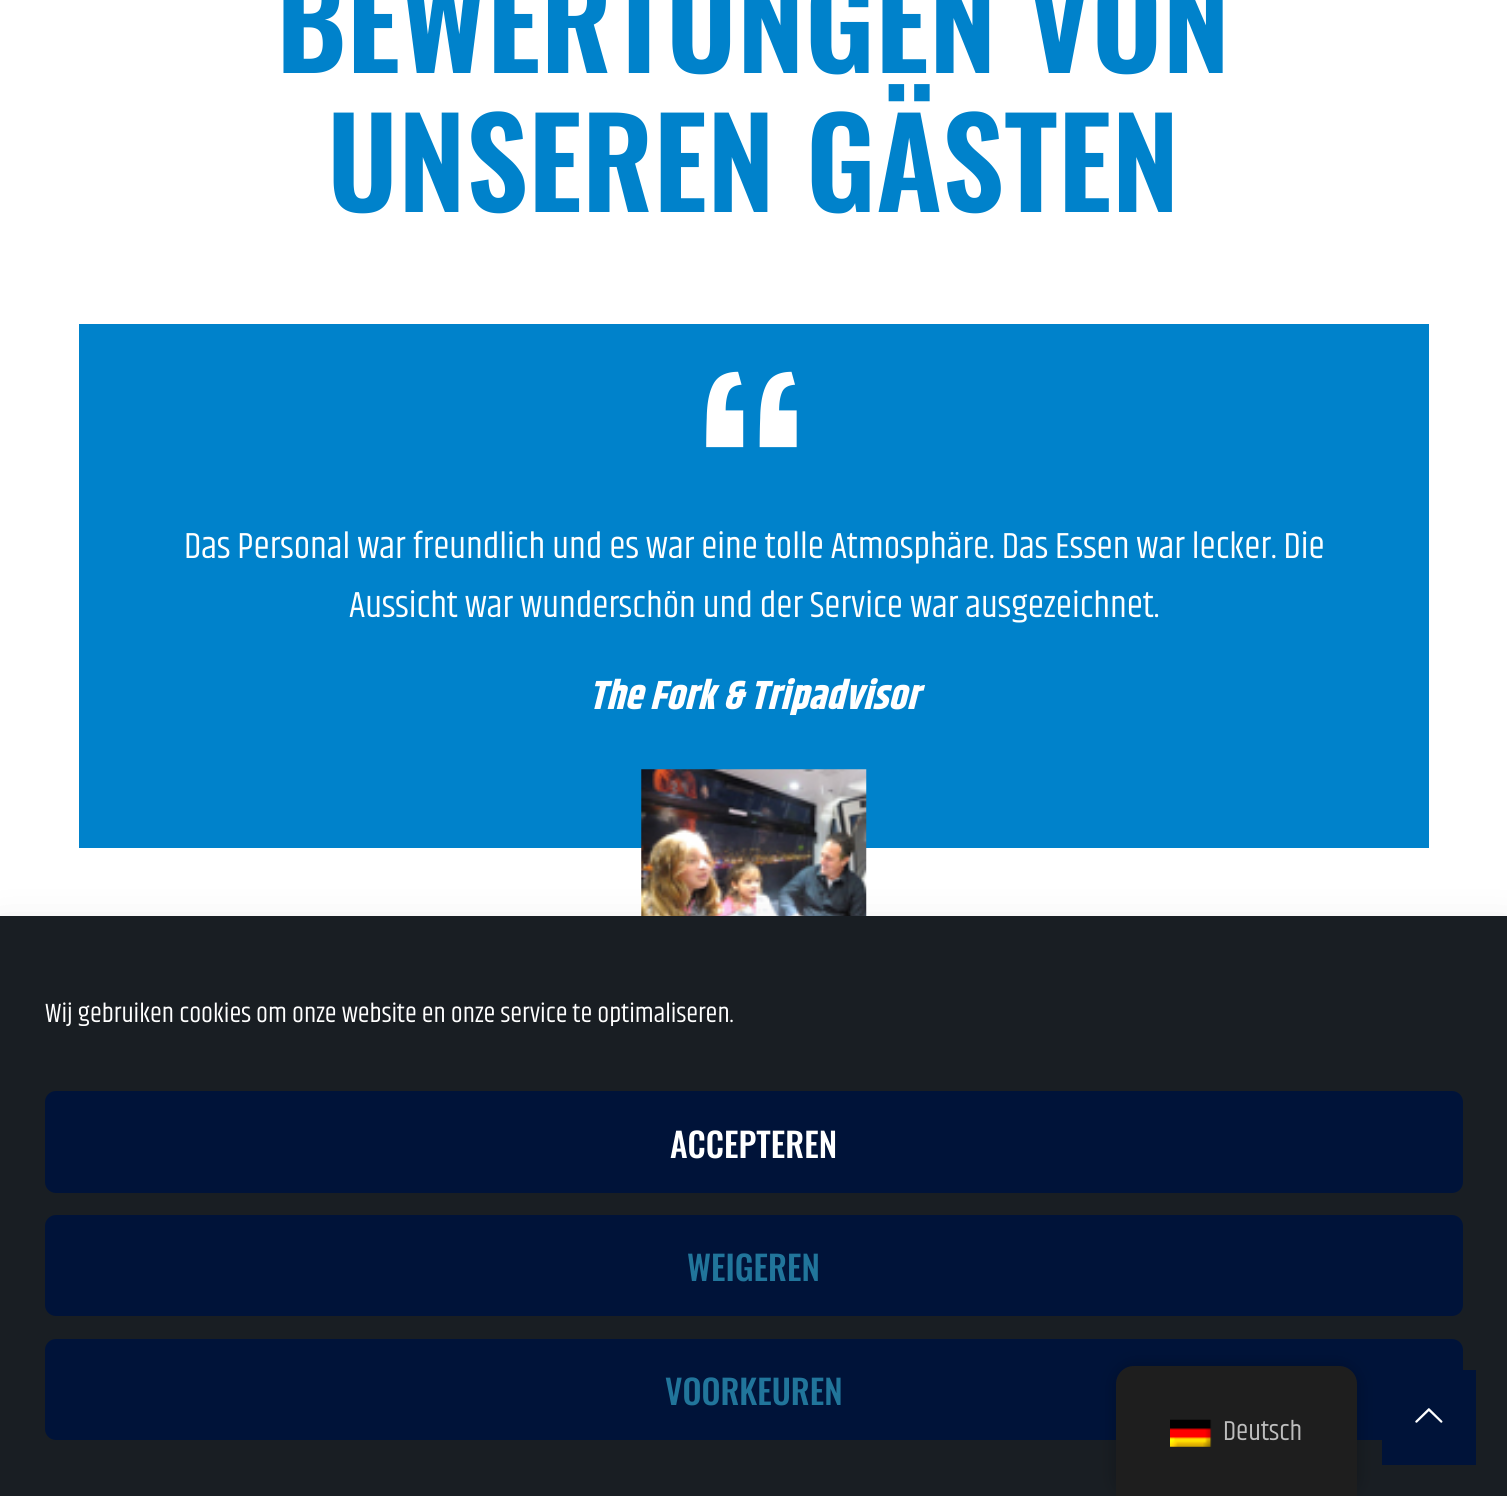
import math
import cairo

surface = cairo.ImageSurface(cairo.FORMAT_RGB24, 1507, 1496)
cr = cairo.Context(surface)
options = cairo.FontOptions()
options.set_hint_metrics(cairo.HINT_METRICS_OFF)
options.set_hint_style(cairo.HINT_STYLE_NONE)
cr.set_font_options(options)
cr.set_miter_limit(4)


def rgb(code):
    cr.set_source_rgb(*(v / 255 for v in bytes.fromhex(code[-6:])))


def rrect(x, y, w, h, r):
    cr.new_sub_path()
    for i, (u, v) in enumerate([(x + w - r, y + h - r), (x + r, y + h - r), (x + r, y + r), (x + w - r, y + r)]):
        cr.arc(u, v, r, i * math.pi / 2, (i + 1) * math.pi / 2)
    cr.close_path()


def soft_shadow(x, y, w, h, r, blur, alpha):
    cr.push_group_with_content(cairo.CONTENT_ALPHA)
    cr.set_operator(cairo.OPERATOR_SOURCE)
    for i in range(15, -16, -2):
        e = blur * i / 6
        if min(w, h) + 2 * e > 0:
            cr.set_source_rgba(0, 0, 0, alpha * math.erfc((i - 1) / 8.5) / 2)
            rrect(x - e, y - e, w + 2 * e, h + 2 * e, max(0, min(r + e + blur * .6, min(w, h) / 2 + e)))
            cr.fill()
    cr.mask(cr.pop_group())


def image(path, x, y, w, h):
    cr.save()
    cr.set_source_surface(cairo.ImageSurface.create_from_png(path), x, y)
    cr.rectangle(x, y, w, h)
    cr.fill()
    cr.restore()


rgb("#ffffff")
cr.paint()
rgb("#0082cb")
cr.rectangle(79, 324, 1350, 524)
cr.fill()
image("img/1.png", 641, 769, 226, 147)
rgb("#000000")
soft_shadow(0, 938, 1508, 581, 0, 22.5, 0.19)
rgb("#191e23")
cr.rectangle(0, 916, 1507, 580)
cr.fill()
rgb("#001339")
rrect(45, 1091, 1418, 102, 11)
cr.fill()
rrect(45, 1215, 1418, 101, 11)
cr.fill()
rrect(45, 1339, 1418, 101, 11)
cr.fill()
cr.rectangle(1382, 1370, 94, 95)
cr.fill()
rgb("#000000")
soft_shadow(1116, 1366, 241, 130, 18, 9, 0.25)
rgb("#1e1e1e")
cr.new_path()
cr.move_to(1134, 1366)
cr.line_to(1339, 1366)
cr.curve_to(1349, 1366, 1357, 1374, 1357, 1384)
cr.line_to(1357, 1496)
cr.line_to(1116, 1496)
cr.line_to(1116, 1384)
cr.curve_to(1116, 1374, 1124, 1366, 1134, 1366)
cr.close_path()
cr.fill()
image("img/2.png", 1170, 1419, 42, 28)
image("img/3.png", 1415, 1408, 28, 15)
cr.select_font_face("Oswald SemiBold")
cr.set_font_size(122.75)
rgb("#0082cb")
cr.move_to(276, 73)
cr.show_text("BEWERTUNGEN VON")
cr.move_to(327, 212)
cr.show_text("UNSEREN GÄSTEN")
cr.set_font_size(270)
rgb("#ffffff")
cr.move_to(700, 594)
cr.show_text("“")
cr.select_font_face("Khand")
cr.set_font_size(37.05)
cr.move_to(184, 558)
cr.show_text("Das Personal war freundlich und es war eine tolle Atmosphäre. Das Essen war lecker. Die")
cr.move_to(349, 617)
cr.show_text("Aussicht war wunderschön und der Service war ausgezeichnet.")
cr.select_font_face("Khand", cairo.FONT_SLANT_ITALIC, cairo.FONT_WEIGHT_BOLD)
cr.set_font_size(40.5)
cr.move_to(589, 709)
cr.show_text("The Fork & Tripadvisor")
cr.select_font_face("Khand")
cr.set_font_size(27)
cr.move_to(45, 1022)
cr.show_text("Wij gebruiken cookies om onze website en onze service te optimaliseren.")
cr.select_font_face("Oswald Medium")
cr.set_font_size(33.75)
cr.move_to(670, 1158)
cr.show_text("ACCEPTEREN")
rgb("#21759b")
cr.move_to(687, 1281)
cr.show_text("WEIGEREN")
cr.move_to(665, 1405)
cr.show_text("VOORKEUREN")
cr.select_font_face("Khand")
cr.set_font_size(28)
rgb("#bdbdbd")
cr.move_to(1223, 1440)
cr.show_text("Deutsch")
surface.write_to_png("page.png")
